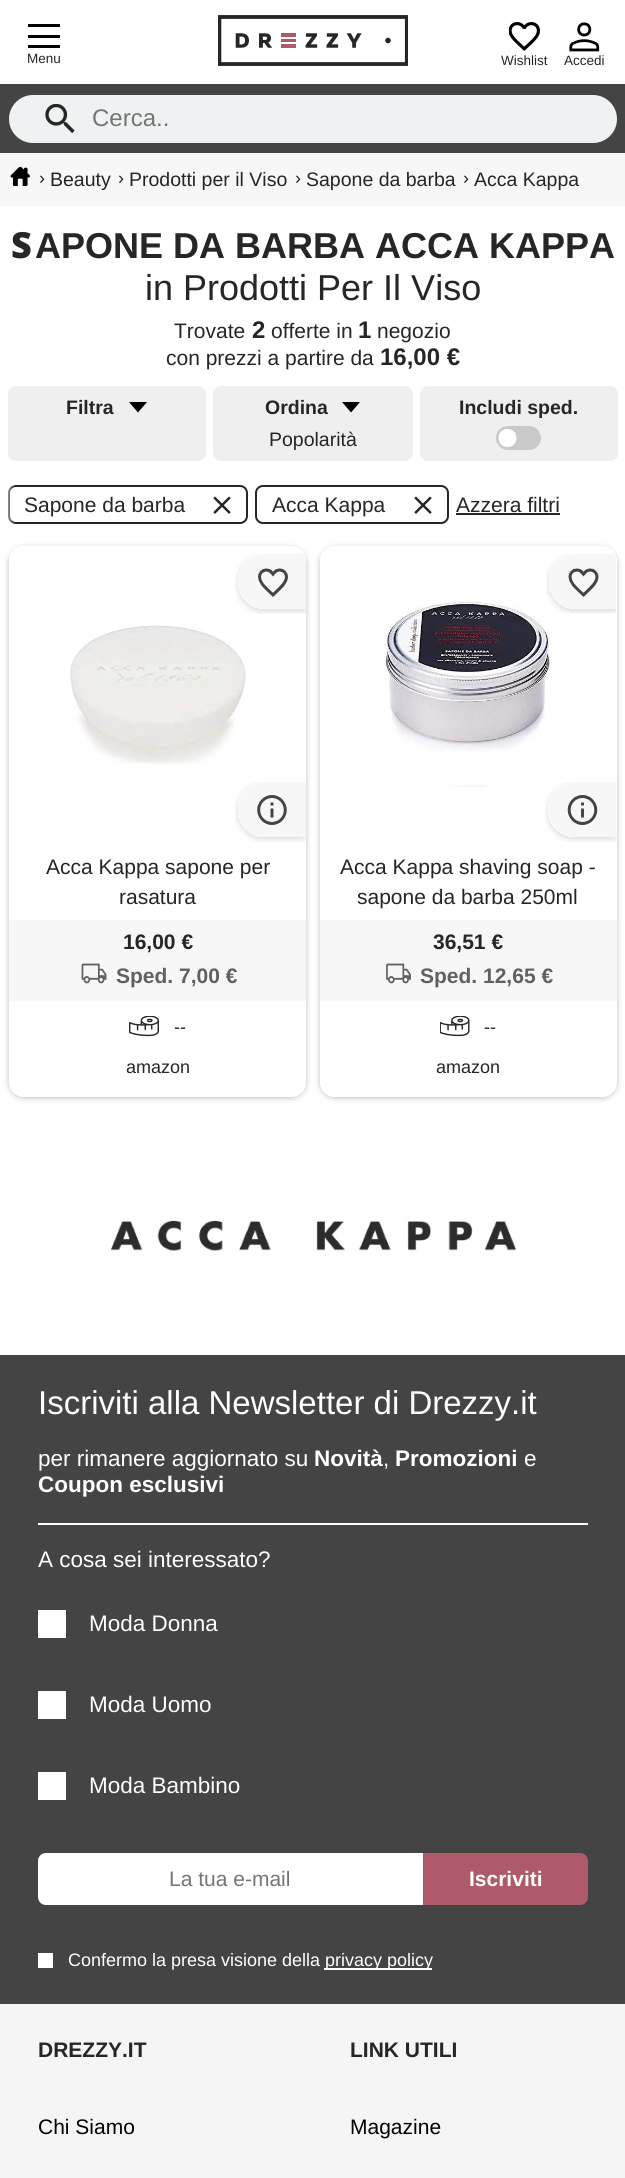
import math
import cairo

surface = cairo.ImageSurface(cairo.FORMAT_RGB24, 625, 2178)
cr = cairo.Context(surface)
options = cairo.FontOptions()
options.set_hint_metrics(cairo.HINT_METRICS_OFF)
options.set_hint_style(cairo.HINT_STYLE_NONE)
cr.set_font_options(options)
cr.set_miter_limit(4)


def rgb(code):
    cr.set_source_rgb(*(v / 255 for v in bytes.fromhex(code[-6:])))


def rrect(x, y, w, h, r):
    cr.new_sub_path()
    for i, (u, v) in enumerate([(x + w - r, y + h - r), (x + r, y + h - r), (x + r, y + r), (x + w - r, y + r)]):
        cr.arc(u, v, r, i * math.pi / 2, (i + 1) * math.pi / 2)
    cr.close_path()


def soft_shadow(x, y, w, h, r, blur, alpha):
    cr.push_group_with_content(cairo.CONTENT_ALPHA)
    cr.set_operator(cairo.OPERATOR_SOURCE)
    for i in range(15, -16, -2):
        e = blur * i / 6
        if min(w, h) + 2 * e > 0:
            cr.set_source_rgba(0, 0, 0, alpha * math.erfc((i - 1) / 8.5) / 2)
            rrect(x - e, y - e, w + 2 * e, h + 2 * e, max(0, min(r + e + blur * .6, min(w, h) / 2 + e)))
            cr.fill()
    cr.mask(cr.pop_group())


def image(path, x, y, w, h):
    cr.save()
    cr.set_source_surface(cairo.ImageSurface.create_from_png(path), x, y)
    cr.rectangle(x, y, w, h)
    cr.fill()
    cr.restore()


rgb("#ffffff")
cr.paint()
for x, y, w, h, color in [
    (28, 24, 32, 3, "#000000"),
    (28, 35, 32, 3, "#000000"),
    (28, 45, 32, 3, "#000000"),
]:
    rgb(color)
    cr.rectangle(x, y, w, h)
    cr.fill()
image("img/1.png", 218, 15, 190, 51)
image("img/2.png", 509, 22, 31, 29)
image("img/3.png", 569, 22, 31, 30)
rgb("#444444")
cr.rectangle(0, 84, 625, 69)
cr.fill()
rgb("#eef2f3")
rrect(9, 95, 608, 48, 24)
cr.fill()
image("img/4.png", 45, 104, 30, 30)
rgb("#f7f7f7")
cr.rectangle(0, 153, 625, 53)
cr.fill()
image("img/5.png", 10, 167, 20, 19)
rgb("#efefef")
rrect(9, 387, 196, 73, 7)
cr.fill_preserve()
cr.stroke()
rgb("#000000")
cr.new_path()
cr.move_to(129, 402)
cr.line_to(147, 402)
cr.line_to(138, 412.5)
cr.close_path()
cr.fill()
rgb("#efefef")
rrect(214, 387, 198, 73, 7)
cr.fill_preserve()
cr.stroke()
rgb("#000000")
cr.new_path()
cr.move_to(342, 402)
cr.line_to(360, 402)
cr.line_to(351, 412.5)
cr.close_path()
cr.fill()
rgb("#efefef")
rrect(421, 387, 196, 73, 7)
cr.fill_preserve()
cr.stroke()
rgb("#c9c9c9")
rrect(496, 426, 45, 24, 12)
cr.fill()
rgb("#ffffff")
cr.set_fill_rule(cairo.FILL_RULE_EVEN_ODD)
cr.new_path()
cr.move_to(507.5, 447)
cr.curve_to(519.5, 447, 519.5, 429, 507.5, 429)
cr.curve_to(495.5, 429, 495.5, 447, 507.5, 447)
cr.close_path()
cr.fill()
rrect(9, 486, 238, 37, 7)
rgb("#262626")
cr.stroke()
gradient = cairo.LinearGradient(15, 497, 0, 497)
gradient.add_color_stop_rgba(0, 1, 1, 1, 0)
gradient.add_color_stop_rgba(1, 1, 1, 1, 1)
cr.set_source(gradient)
cr.rectangle(8, 485, 7, 39)
cr.fill()
image("img/6.png", 213, 496, 18, 18)
rrect(256, 486, 192, 37, 7)
rgb("#262626")
cr.stroke()
image("img/6.png", 414, 496, 18, 18)
cr.rectangle(456, 513, 104, 2)
cr.fill()
cr.save()
cr.new_path()
cr.move_to(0, 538)
cr.line_to(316, 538)
cr.line_to(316, 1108)
cr.line_to(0, 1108)
cr.close_path()
cr.move_to(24, 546)
cr.line_to(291, 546)
cr.curve_to(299.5, 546, 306, 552.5, 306, 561)
cr.line_to(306, 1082)
cr.curve_to(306, 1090.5, 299.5, 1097, 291, 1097)
cr.line_to(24, 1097)
cr.curve_to(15.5, 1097, 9, 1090.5, 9, 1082)
cr.line_to(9, 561)
cr.curve_to(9, 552.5, 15.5, 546, 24, 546)
cr.close_path()
cr.clip()
rgb("#000000")
soft_shadow(9, 548, 297, 550, 15, 3, 0.25)
cr.restore()
image("img/7.png", 235, 554, 71, 60)
image("img/8.png", 70, 625, 177, 139)
image("img/9.png", 235, 782, 71, 60)
rgb("#f7f7f7")
cr.rectangle(9, 920, 297, 81)
cr.fill()
image("img/10.png", 81, 963, 26, 21)
image("img/11.png", 129, 1016, 30, 21)
cr.save()
cr.new_path()
cr.move_to(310, 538)
cr.line_to(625, 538)
cr.line_to(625, 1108)
cr.line_to(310, 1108)
cr.close_path()
cr.move_to(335, 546)
cr.line_to(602, 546)
cr.curve_to(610.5, 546, 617, 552.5, 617, 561)
cr.line_to(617, 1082)
cr.curve_to(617, 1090.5, 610.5, 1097, 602, 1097)
cr.line_to(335, 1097)
cr.curve_to(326.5, 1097, 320, 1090.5, 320, 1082)
cr.line_to(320, 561)
cr.curve_to(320, 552.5, 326.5, 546, 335, 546)
cr.close_path()
cr.clip()
rgb("#000000")
soft_shadow(320, 548, 297, 550, 15, 3, 0.25)
cr.restore()
image("img/13.png", 385, 601, 168, 186)
image("img/12.png", 546, 554, 70, 60)
image("img/14.png", 545, 782, 72, 60)
cr.rectangle(320, 920, 297, 81)
cr.fill()
image("img/15.png", 386, 963, 25, 21)
image("img/16.png", 440, 1016, 30, 21)
image("img/17.png", 111, 1220, 405, 31)
for x, y, w, h, color in [
    (0, 2004, 625, 174, "#f5f5f5"),
    (0, 1355, 625, 649, "#444444"),
    (38, 1523, 550, 2, "#ffffff"),
]:
    rgb(color)
    cr.rectangle(x, y, w, h)
    cr.fill()
cr.rectangle(39.5, 1611.5, 25, 25)
cr.fill_preserve()
cr.set_line_width(3)
cr.stroke()
cr.rectangle(39.5, 1692.5, 25, 25)
cr.fill_preserve()
cr.stroke()
cr.rectangle(39.5, 1773.5, 25, 25)
cr.fill_preserve()
cr.stroke()
cr.new_path()
cr.move_to(46, 1853)
cr.line_to(423, 1853)
cr.line_to(423, 1905)
cr.line_to(46, 1905)
cr.curve_to(41.5, 1905, 38, 1901.5, 38, 1897)
cr.line_to(38, 1861)
cr.curve_to(38, 1856.5, 41.5, 1853, 46, 1853)
cr.close_path()
cr.fill()
rgb("#ae5a69")
cr.new_path()
cr.move_to(423, 1853)
cr.line_to(580, 1853)
cr.curve_to(584.5, 1853, 588, 1856.5, 588, 1861)
cr.line_to(588, 1897)
cr.curve_to(588, 1901.5, 584.5, 1905, 580, 1905)
cr.line_to(423, 1905)
cr.close_path()
cr.fill()
rgb("#ffffff")
cr.rectangle(38, 1953, 15, 15)
cr.fill()
cr.rectangle(324, 1968, 108, 2)
cr.fill()
cr.select_font_face("Liberation Sans")
cr.set_font_size(13.5)
rgb("#262626")
for x, y, s in [
    (27, 63, "Menu"),
    (501, 65, "Wishlist"),
    (564, 65, "Accedi"),
]:
    cr.move_to(x, y)
    cr.show_text(s)
cr.set_font_size(24)
rgb("#757575")
cr.move_to(92, 126)
cr.show_text("Cerca..")
cr.set_font_size(18)
rgb("#262626")
cr.move_to(39, 184)
cr.show_text("›")
cr.set_font_size(19.5)
cr.move_to(50, 186)
cr.show_text("Beauty")
cr.set_font_size(18)
cr.move_to(118, 184)
cr.show_text("›")
cr.set_font_size(19.5)
cr.move_to(129, 186)
cr.show_text("Prodotti per il Viso")
cr.set_font_size(18)
cr.move_to(295, 184)
cr.show_text("›")
cr.set_font_size(19.5)
cr.move_to(306, 186)
cr.show_text("Sapone da barba")
cr.set_font_size(18)
cr.move_to(463, 184)
cr.show_text("›")
cr.set_font_size(19.5)
cr.move_to(474, 186)
cr.show_text("Acca Kappa")
cr.select_font_face("Noto Sans Black")
cr.set_font_size(36)
cr.move_to(11, 258)
cr.show_text("S")
cr.select_font_face("Liberation Sans", cairo.FONT_SLANT_NORMAL, cairo.FONT_WEIGHT_BOLD)
cr.move_to(35, 258)
cr.show_text("APONE DA BARBA ACCA KAPPA")
cr.select_font_face("Liberation Sans")
cr.move_to(145, 300)
cr.show_text("in Prodotti Per Il Viso")
cr.set_font_size(21)
cr.move_to(174, 338)
cr.show_text("Trovate")
cr.select_font_face("Liberation Sans", cairo.FONT_SLANT_NORMAL, cairo.FONT_WEIGHT_BOLD)
cr.set_font_size(24)
cr.move_to(252, 338)
cr.show_text("2")
cr.select_font_face("Liberation Sans")
cr.set_font_size(21)
cr.move_to(271, 338)
cr.show_text("offerte in")
cr.select_font_face("Liberation Sans", cairo.FONT_SLANT_NORMAL, cairo.FONT_WEIGHT_BOLD)
cr.set_font_size(24)
cr.move_to(358, 338)
cr.show_text("1")
cr.select_font_face("Liberation Sans")
cr.set_font_size(21)
cr.move_to(377, 338)
cr.show_text("negozio")
cr.move_to(166, 365)
cr.show_text("con prezzi a partire da")
cr.select_font_face("Liberation Sans", cairo.FONT_SLANT_NORMAL, cairo.FONT_WEIGHT_BOLD)
cr.set_font_size(24)
cr.move_to(380, 365)
cr.show_text("16,00 €")
cr.set_font_size(19.5)
cr.move_to(66, 414)
cr.show_text("Filtra")
cr.move_to(265, 414)
cr.show_text("Ordina")
cr.select_font_face("Liberation Sans")
cr.move_to(269, 446)
cr.show_text("Popolarità")
cr.select_font_face("Liberation Sans", cairo.FONT_SLANT_NORMAL, cairo.FONT_WEIGHT_BOLD)
cr.move_to(459, 414)
cr.show_text("Includi sped.")
cr.select_font_face("Liberation Sans")
cr.set_font_size(21)
for x, y, s in [
    (24, 512, "Sapone da barba"),
    (272, 512, "Acca Kappa"),
    (456, 512, "Azzera filtri"),
    (46, 874, "Acca Kappa sapone per"),
    (119, 904, "rasatura"),
]:
    cr.move_to(x, y)
    cr.show_text(s)
cr.select_font_face("Liberation Sans", cairo.FONT_SLANT_NORMAL, cairo.FONT_WEIGHT_BOLD)
cr.move_to(123, 949)
cr.show_text("16,00 €")
rgb("#616161")
cr.move_to(116, 983)
cr.show_text("Sped. 7,00 €")
cr.select_font_face("Liberation Sans")
cr.set_font_size(18)
rgb("#262626")
cr.move_to(174, 1033)
cr.show_text("--")
cr.move_to(126, 1073)
cr.show_text("amazon")
cr.set_font_size(21)
cr.move_to(340, 874)
cr.show_text("Acca Kappa shaving soap -")
cr.move_to(357, 904)
cr.show_text("sapone da barba 250ml")
cr.select_font_face("Liberation Sans", cairo.FONT_SLANT_NORMAL, cairo.FONT_WEIGHT_BOLD)
cr.move_to(433, 949)
cr.show_text("36,51 €")
rgb("#616161")
cr.move_to(420, 983)
cr.show_text("Sped. 12,65 €")
cr.select_font_face("Liberation Sans")
cr.set_font_size(18)
rgb("#262626")
cr.move_to(484, 1033)
cr.show_text("--")
cr.move_to(436, 1073)
cr.show_text("amazon")
cr.set_font_size(33)
rgb("#ffffff")
cr.move_to(38, 1414)
cr.show_text("Iscriviti alla Newsletter di Drezzy.it")
cr.set_font_size(22.5)
cr.move_to(38, 1466)
cr.show_text("per rimanere aggiornato su")
cr.select_font_face("Liberation Sans", cairo.FONT_SLANT_NORMAL, cairo.FONT_WEIGHT_BOLD)
cr.move_to(314, 1466)
cr.show_text("Novità")
cr.select_font_face("Liberation Sans")
cr.move_to(383, 1466)
cr.show_text(",")
cr.select_font_face("Liberation Sans", cairo.FONT_SLANT_NORMAL, cairo.FONT_WEIGHT_BOLD)
cr.move_to(395, 1466)
cr.show_text("Promozioni")
cr.select_font_face("Liberation Sans")
cr.move_to(524, 1466)
cr.show_text("e")
cr.select_font_face("Liberation Sans", cairo.FONT_SLANT_NORMAL, cairo.FONT_WEIGHT_BOLD)
cr.move_to(38, 1492)
cr.show_text("Coupon esclusivi")
cr.select_font_face("Liberation Sans")
for x, y, s in [
    (38, 1567, "A cosa sei interessato?"),
    (89, 1631, "Moda Donna"),
    (89, 1712, "Moda Uomo"),
    (89, 1793, "Moda Bambino"),
]:
    cr.move_to(x, y)
    cr.show_text(s)
cr.set_font_size(21)
rgb("#757575")
cr.move_to(169, 1886)
cr.show_text("La tua e-mail")
cr.select_font_face("Liberation Sans", cairo.FONT_SLANT_NORMAL, cairo.FONT_WEIGHT_BOLD)
rgb("#ffffff")
cr.move_to(469, 1886)
cr.show_text("Iscriviti")
cr.select_font_face("Liberation Sans")
cr.set_font_size(18)
cr.move_to(68, 1966)
cr.show_text("Confermo la presa visione della")
cr.move_to(325, 1966)
cr.show_text("privacy policy")
cr.select_font_face("Liberation Sans", cairo.FONT_SLANT_NORMAL, cairo.FONT_WEIGHT_BOLD)
cr.set_font_size(21)
rgb("#262626")
cr.move_to(38, 2057)
cr.show_text("DREZZY.IT")
cr.select_font_face("Liberation Sans")
rgb("#000000")
cr.move_to(38, 2134)
cr.show_text("Chi Siamo")
cr.select_font_face("Liberation Sans", cairo.FONT_SLANT_NORMAL, cairo.FONT_WEIGHT_BOLD)
rgb("#262626")
cr.move_to(350, 2057)
cr.show_text("LINK UTILI")
cr.select_font_face("Liberation Sans")
rgb("#000000")
cr.move_to(350, 2134)
cr.show_text("Magazine")
surface.write_to_png("page.png")
